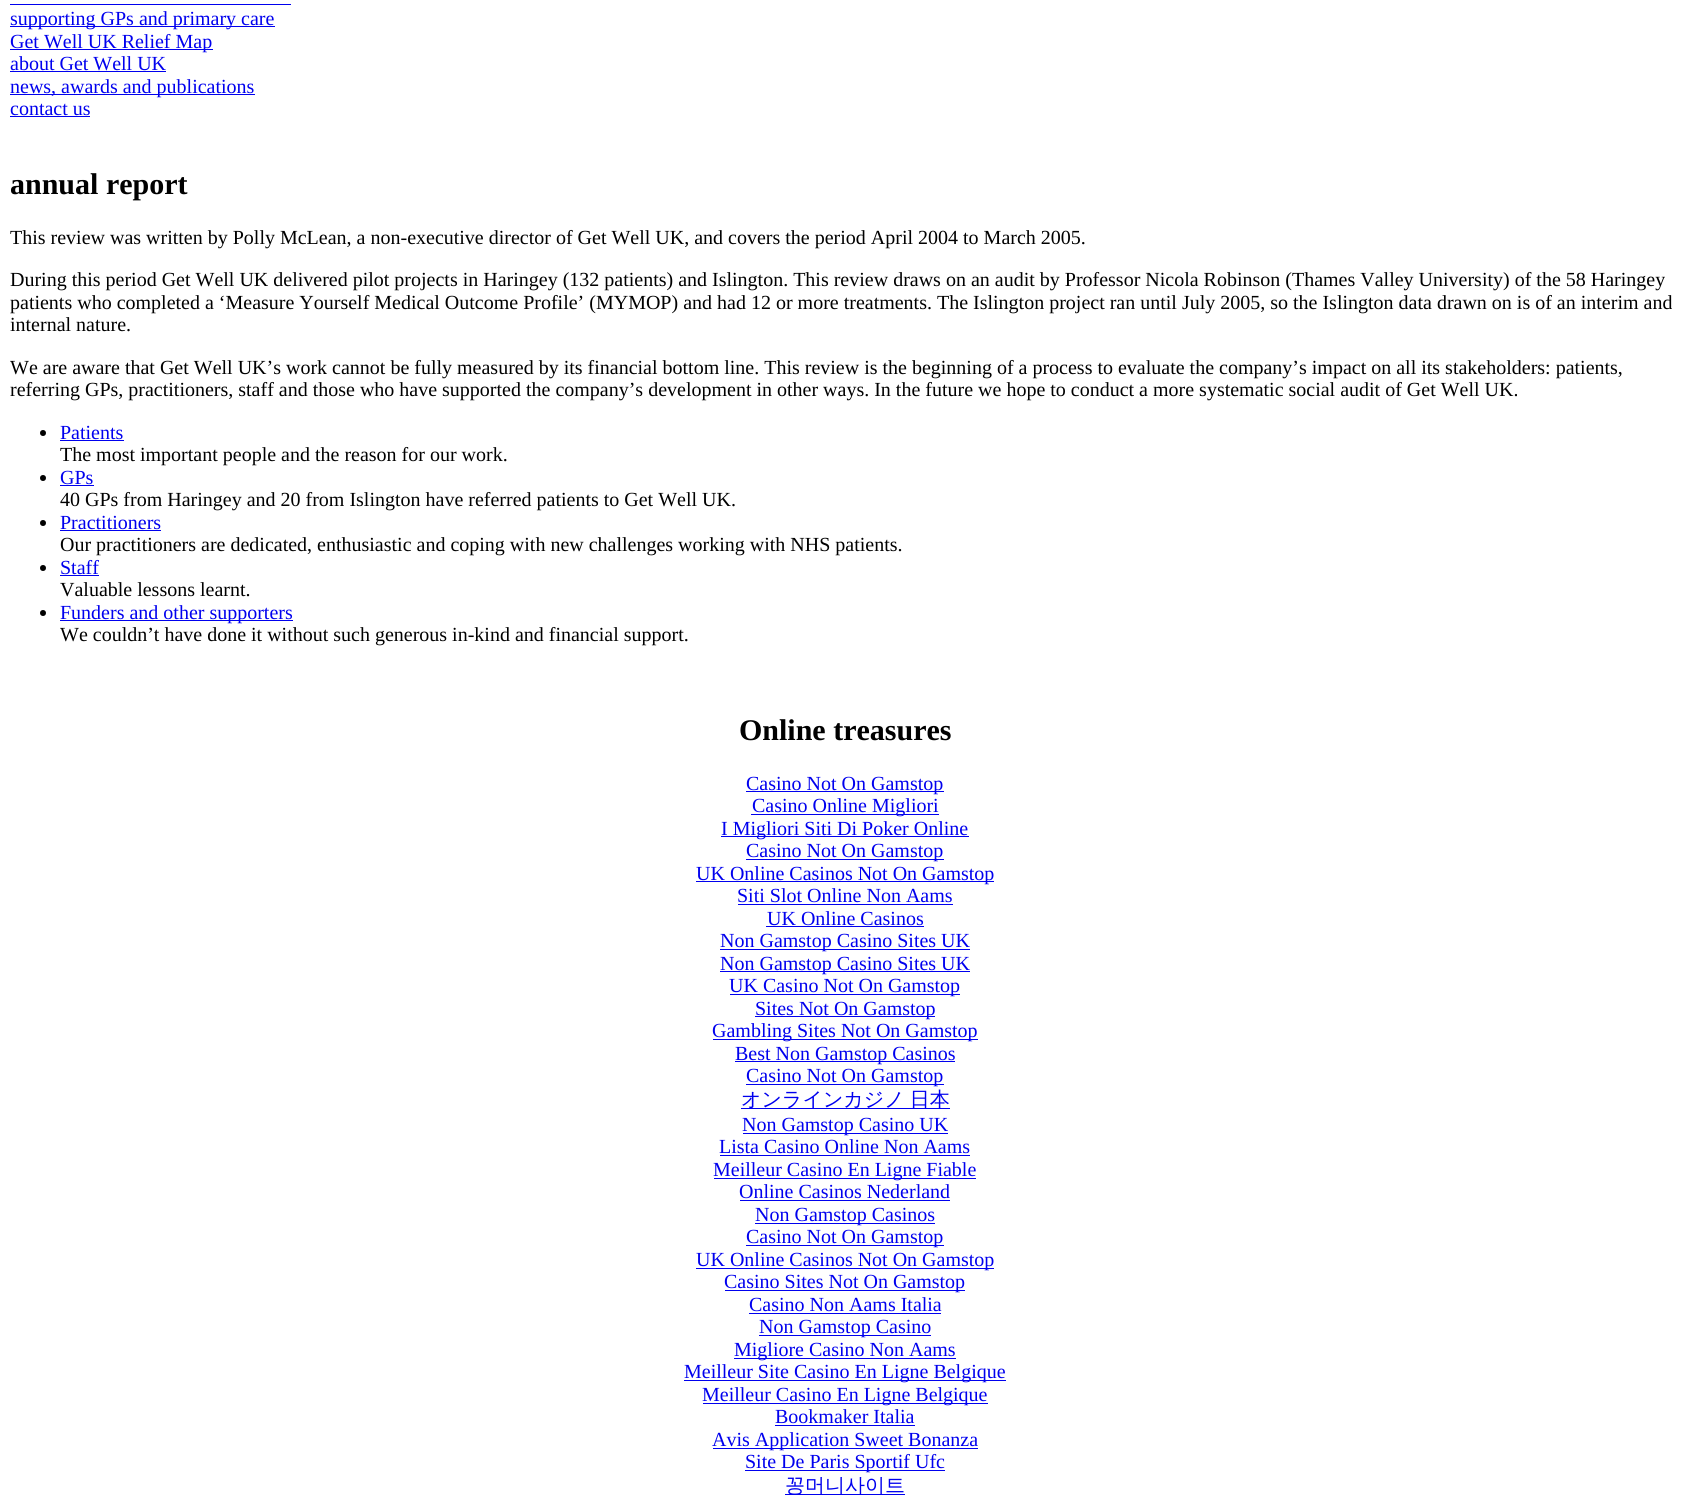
import math
import cairo

surface = cairo.ImageSurface(cairo.FORMAT_RGB24, 1690, 1497)
cr = cairo.Context(surface)
options = cairo.FontOptions()
options.set_hint_metrics(cairo.HINT_METRICS_OFF)
options.set_hint_style(cairo.HINT_STYLE_NONE)
cr.set_font_options(options)
cr.set_miter_limit(4)


def rgb(code):
    cr.set_source_rgb(*(v / 255 for v in bytes.fromhex(code[-6:])))


def tracked(x, y, s, letter, word):
    cr.move_to(x, y)
    for ch in s:
        cr.show_text(ch)
        cr.rel_move_to(letter + word * (ch == ' '), 0)


rgb("#ffffff")
cr.paint()
for x, y, w, h, color in [
    (10, 4, 281, 1, "#0000ee"),
    (10, 26, 265, 1, "#0000ee"),
    (10, 49, 203, 1, "#0000ee"),
    (10, 71, 156, 1, "#0000ee"),
    (10, 94, 245, 1, "#0000ee"),
    (10, 116, 80, 1, "#0000ee"),
]:
    rgb(color)
    cr.rectangle(x, y, w, h)
    cr.fill()
rgb("#000000")
cr.arc(43, 433, 3, 0, 2 * math.pi)
cr.fill()
rgb("#0000ee")
cr.rectangle(60, 440, 64, 1)
cr.fill()
rgb("#000000")
cr.arc(43, 478, 3, 0, 2 * math.pi)
cr.fill()
rgb("#0000ee")
cr.rectangle(60, 485, 34, 1)
cr.fill()
rgb("#000000")
cr.arc(43, 523, 3, 0, 2 * math.pi)
cr.fill()
rgb("#0000ee")
cr.rectangle(60, 530, 101, 1)
cr.fill()
rgb("#000000")
cr.arc(43, 568, 3, 0, 2 * math.pi)
cr.fill()
rgb("#0000ee")
cr.rectangle(60, 575, 39, 1)
cr.fill()
rgb("#000000")
cr.arc(43, 613, 3, 0, 2 * math.pi)
cr.fill()
for x, y, w, h, color in [
    (60, 620, 233, 1, "#0000ee"),
    (746, 791, 198, 1, "#0000ee"),
    (751, 814, 188, 1, "#0000ee"),
    (721, 836, 248, 1, "#0000ee"),
    (746, 859, 198, 1, "#0000ee"),
    (696, 881, 298, 1, "#0000ee"),
    (738, 904, 215, 1, "#0000ee"),
    (766, 926, 158, 1, "#0000ee"),
    (720, 949, 250, 1, "#0000ee"),
    (720, 971, 250, 1, "#0000ee"),
    (730, 994, 230, 1, "#0000ee"),
    (755, 1016, 180, 1, "#0000ee"),
    (713, 1039, 265, 1, "#0000ee"),
    (735, 1061, 220, 1, "#0000ee"),
    (746, 1084, 198, 1, "#0000ee"),
    (741, 1108, 209, 1, "#0000ee"),
    (743, 1133, 205, 1, "#0000ee"),
    (720, 1155, 250, 1, "#0000ee"),
    (714, 1178, 262, 1, "#0000ee"),
    (740, 1200, 210, 1, "#0000ee"),
    (755, 1223, 180, 1, "#0000ee"),
    (746, 1245, 198, 1, "#0000ee"),
    (696, 1268, 298, 1, "#0000ee"),
    (725, 1290, 240, 1, "#0000ee"),
    (749, 1313, 192, 1, "#0000ee"),
    (759, 1335, 172, 1, "#0000ee"),
    (734, 1358, 222, 1, "#0000ee"),
    (684, 1380, 322, 1, "#0000ee"),
    (703, 1403, 285, 1, "#0000ee"),
    (775, 1425, 140, 1, "#0000ee"),
    (713, 1448, 265, 1, "#0000ee"),
    (745, 1470, 200, 1, "#0000ee"),
    (785, 1494, 120, 1, "#0000ee"),
]:
    rgb(color)
    cr.rectangle(x, y, w, h)
    cr.fill()
cr.select_font_face("Liberation Serif")
cr.set_font_size(20)
for x, y, s in [
    (10, 25, "supporting GPs and primary care"),
    (10, 48, "Get Well UK Relief Map"),
    (10, 70, "about Get Well UK"),
    (10, 93, "news, awards and publications"),
    (10, 115, "contact us"),
]:
    cr.move_to(x, y)
    cr.show_text(s)
cr.select_font_face("Liberation Serif", cairo.FONT_SLANT_NORMAL, cairo.FONT_WEIGHT_BOLD)
cr.set_font_size(30)
rgb("#000000")
cr.move_to(10, 194)
cr.show_text("annual report")
cr.select_font_face("Liberation Serif")
cr.set_font_size(20)
for x, y, s in [
    (10, 244, "This review was written by Polly McLean, a non-executive director of Get Well UK, and covers the period April 2004 to March 2005."),
    (10, 286, "During this period Get Well UK delivered pilot projects in Haringey (132 patients) and Islington. This review draws on an audit by Professor Nicola Robinson (Thames Valley University) of the 58 Haringey"),
    (10, 309, "patients who completed a ‘Measure Yourself Medical Outcome Profile’ (MYMOP) and had 12 or more treatments. The Islington project ran until July 2005, so the Islington data drawn on is of an interim and"),
    (10, 331, "internal nature."),
    (10, 374, "We are aware that Get Well UK’s work cannot be fully measured by its financial bottom line. This review is the beginning of a process to evaluate the company’s impact on all its stakeholders: patients,"),
    (10, 396, "referring GPs, practitioners, staff and those who have supported the company’s development in other ways. In the future we hope to conduct a more systematic social audit of Get Well UK."),
]:
    cr.move_to(x, y)
    cr.show_text(s)
rgb("#0000ee")
cr.move_to(60, 439)
cr.show_text("Patients")
rgb("#000000")
cr.move_to(60, 461)
cr.show_text("The most important people and the reason for our work.")
rgb("#0000ee")
cr.move_to(60, 484)
cr.show_text("GPs")
rgb("#000000")
cr.move_to(60, 506)
cr.show_text("40 GPs from Haringey and 20 from Islington have referred patients to Get Well UK.")
rgb("#0000ee")
cr.move_to(60, 529)
cr.show_text("Practitioners")
rgb("#000000")
cr.move_to(60, 551)
cr.show_text("Our practitioners are dedicated, enthusiastic and coping with new challenges working with NHS patients.")
rgb("#0000ee")
cr.move_to(60, 574)
cr.show_text("Staff")
rgb("#000000")
cr.move_to(60, 596)
cr.show_text("Valuable lessons learnt.")
rgb("#0000ee")
cr.move_to(60, 619)
cr.show_text("Funders and other supporters")
rgb("#000000")
cr.move_to(60, 641)
cr.show_text("We couldn’t have done it without such generous in-kind and financial support.")
cr.select_font_face("Liberation Serif", cairo.FONT_SLANT_NORMAL, cairo.FONT_WEIGHT_BOLD)
cr.set_font_size(30)
cr.move_to(739, 740)
cr.show_text("Online treasures")
cr.select_font_face("Liberation Serif")
cr.set_font_size(20)
rgb("#0000ee")
for x, y, s in [
    (746, 790, "Casino Not On Gamstop"),
    (752, 812, "Casino Online Migliori"),
    (721, 835, "I Migliori Siti Di Poker Online"),
    (746, 857, "Casino Not On Gamstop"),
    (696, 880, "UK Online Casinos Not On Gamstop"),
    (737, 902, "Siti Slot Online Non Aams"),
    (767, 925, "UK Online Casinos"),
    (720, 947, "Non Gamstop Casino Sites UK"),
    (720, 970, "Non Gamstop Casino Sites UK"),
    (729, 992, "UK Casino Not On Gamstop"),
    (755, 1015, "Sites Not On Gamstop"),
    (712, 1037, "Gambling Sites Not On Gamstop"),
    (735, 1060, "Best Non Gamstop Casinos"),
    (746, 1082, "Casino Not On Gamstop"),
]:
    cr.move_to(x, y)
    cr.show_text(s)
cr.select_font_face("WenQuanYi Zen Hei Medium")
tracked(741, 1106, "オンラインカジノ 日本", 0, -1)
cr.select_font_face("Liberation Serif")
for x, y, s in [
    (742, 1131, "Non Gamstop Casino UK"),
    (719, 1153, "Lista Casino Online Non Aams"),
    (713, 1176, "Meilleur Casino En Ligne Fiable"),
    (739, 1198, "Online Casinos Nederland"),
    (755, 1221, "Non Gamstop Casinos"),
    (746, 1243, "Casino Not On Gamstop"),
    (696, 1266, "UK Online Casinos Not On Gamstop"),
    (724, 1288, "Casino Sites Not On Gamstop"),
    (749, 1311, "Casino Non Aams Italia"),
    (759, 1333, "Non Gamstop Casino"),
    (734, 1356, "Migliore Casino Non Aams"),
    (684, 1378, "Meilleur Site Casino En Ligne Belgique"),
    (702, 1401, "Meilleur Casino En Ligne Belgique"),
    (775, 1423, "Bookmaker Italia"),
    (712, 1446, "Avis Application Sweet Bonanza"),
    (745, 1468, "Site De Paris Sportif Ufc"),
]:
    cr.move_to(x, y)
    cr.show_text(s)
cr.select_font_face("WenQuanYi Zen Hei Medium")
cr.move_to(785, 1492)
cr.show_text("꽁머니사이트")
surface.write_to_png("page.png")
